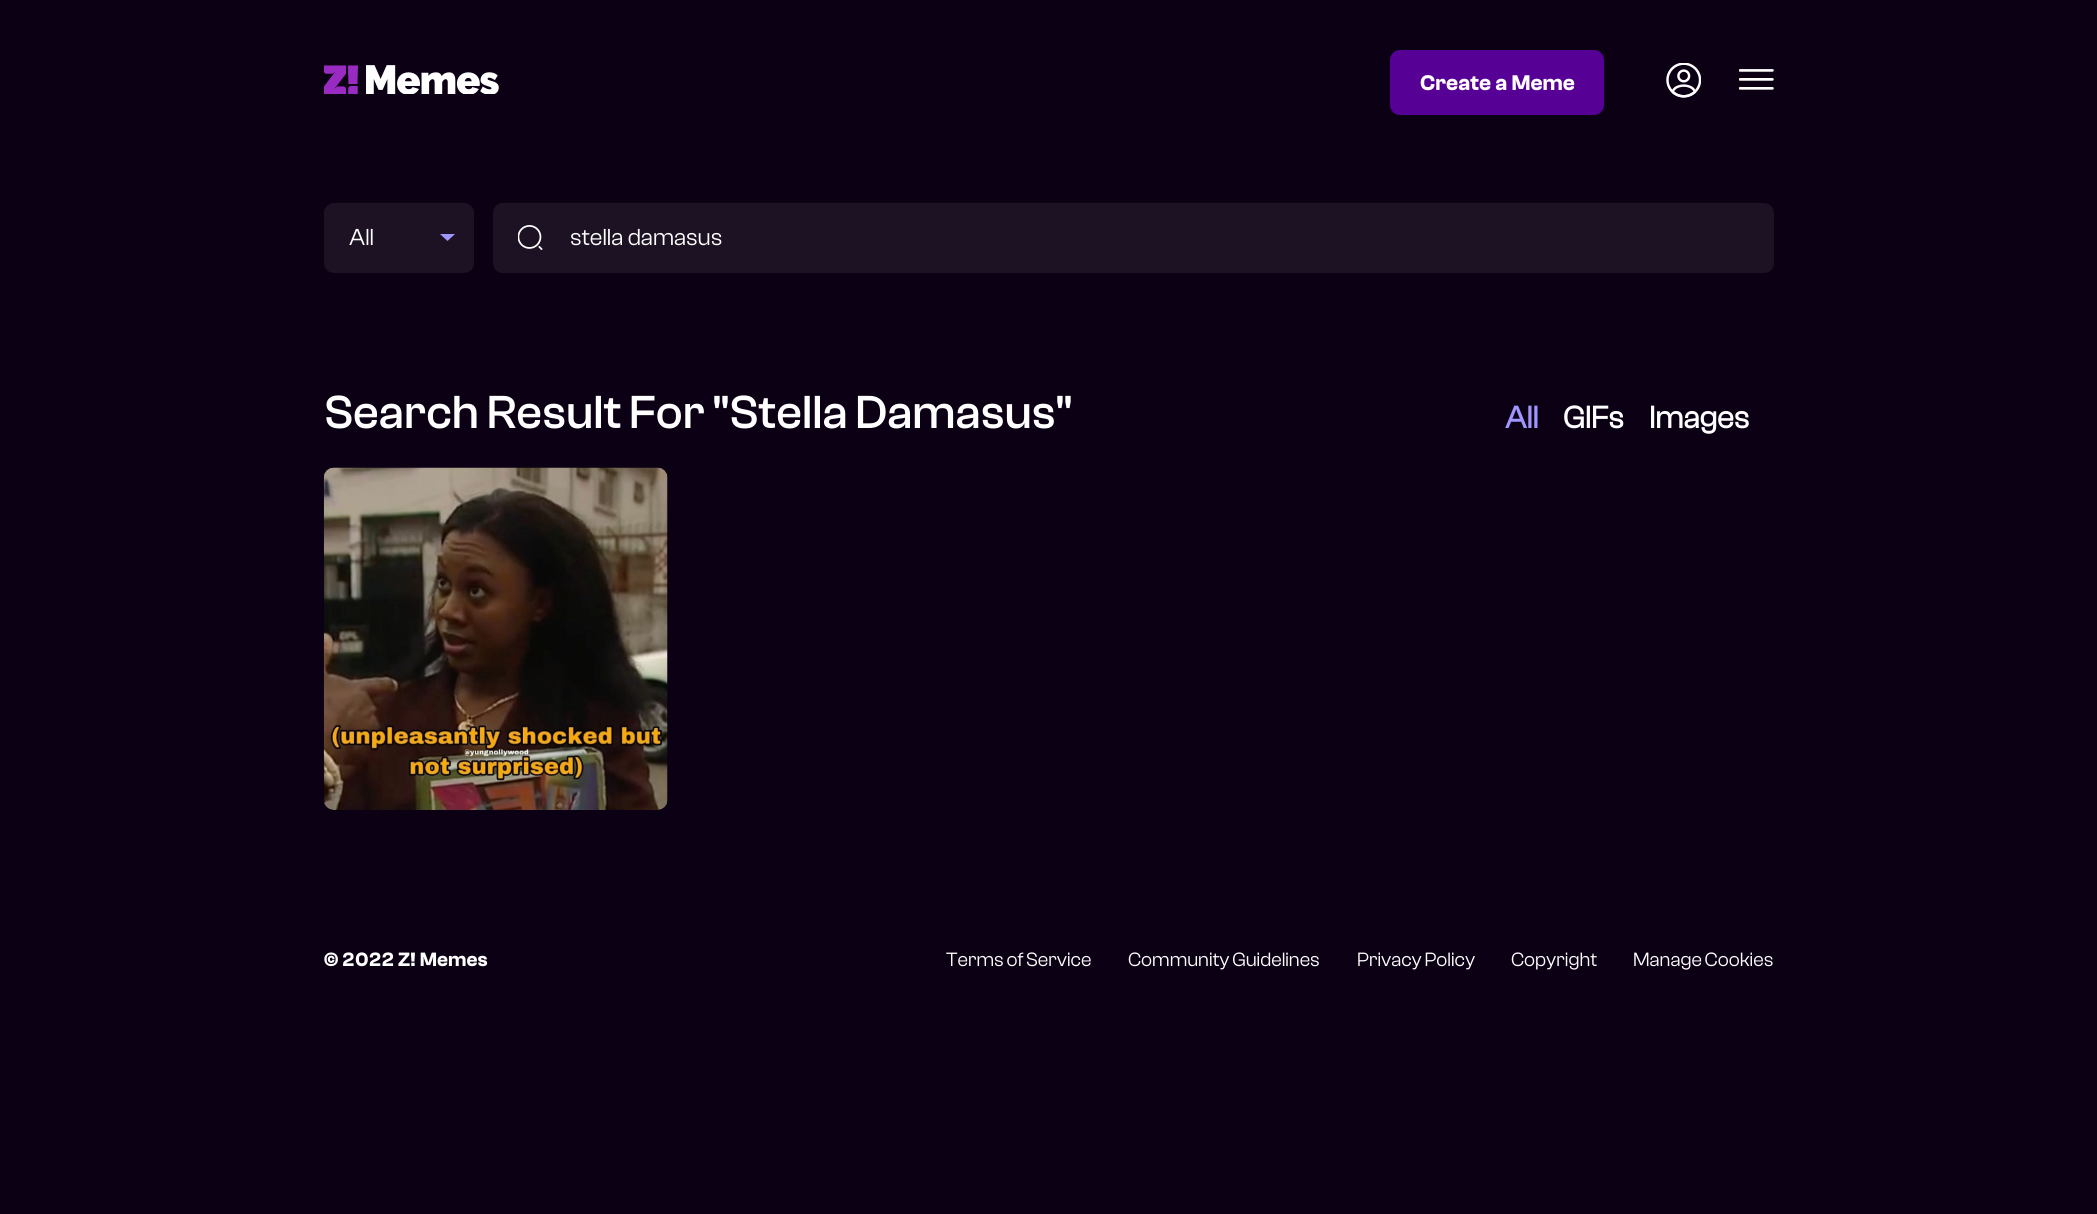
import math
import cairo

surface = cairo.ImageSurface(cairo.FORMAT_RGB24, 2097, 1214)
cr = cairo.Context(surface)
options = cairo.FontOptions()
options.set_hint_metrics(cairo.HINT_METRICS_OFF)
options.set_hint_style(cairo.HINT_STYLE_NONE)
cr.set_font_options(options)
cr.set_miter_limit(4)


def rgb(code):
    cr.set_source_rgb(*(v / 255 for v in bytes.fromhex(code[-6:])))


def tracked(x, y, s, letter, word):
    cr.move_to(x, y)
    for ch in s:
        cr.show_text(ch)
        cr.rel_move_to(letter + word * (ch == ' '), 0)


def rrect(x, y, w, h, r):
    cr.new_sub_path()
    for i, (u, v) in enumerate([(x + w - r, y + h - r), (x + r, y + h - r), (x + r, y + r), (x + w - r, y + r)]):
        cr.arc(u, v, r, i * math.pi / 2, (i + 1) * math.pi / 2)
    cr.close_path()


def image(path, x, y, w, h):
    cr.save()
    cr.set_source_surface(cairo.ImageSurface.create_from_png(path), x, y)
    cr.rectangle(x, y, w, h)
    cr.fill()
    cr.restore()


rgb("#0b0014")
cr.paint()
image("img/1.png", 324, 65, 175, 29)
rgb("#570095")
rrect(1390, 50, 214, 65, 10)
cr.fill()
image("img/2.png", 1666, 63, 35, 35)
image("img/3.png", 1739, 69, 35, 21)
rgb("#1c1224")
rrect(324, 203, 150, 70, 10)
cr.fill()
rgb("#a196ff")
cr.new_path()
cr.move_to(440, 234)
cr.line_to(455, 234)
cr.line_to(447.5, 241)
cr.close_path()
cr.fill()
rgb("#1c1224")
rrect(493, 203, 1281, 70, 10)
cr.fill()
image("img/4.png", 518, 225, 25, 25)
image("img/5.png", 323, 467, 345, 343)
cr.select_font_face("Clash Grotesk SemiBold")
cr.set_font_size(22)
rgb("#ffffff")
cr.move_to(1420, 90)
cr.show_text("Create a Meme")
cr.select_font_face("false")
cr.set_font_size(24)
cr.move_to(349, 245)
cr.show_text("All")
cr.move_to(570, 245)
cr.show_text("stella damasus")
cr.select_font_face("Clash Grotesk Medium")
cr.set_font_size(48)
tracked(324, 428, "Search Result For \"Stella Damasus\"", 0, -1.5)
cr.select_font_face("false", cairo.FONT_SLANT_NORMAL, cairo.FONT_WEIGHT_BOLD)
cr.set_font_size(32)
rgb("#a196ff")
cr.move_to(1505, 428)
cr.show_text("All")
rgb("#ffffff")
cr.move_to(1563, 428)
cr.show_text("GIFs")
cr.move_to(1649, 428)
cr.show_text("Images")
cr.select_font_face("Clash Grotesk SemiBold")
cr.set_font_size(20)
cr.move_to(324, 966)
cr.show_text("© 2022 Z! Memes")
cr.select_font_face("false")
for x, y, s in [
    (946, 966, "Terms of Service"),
    (1128, 966, "Community Guidelines"),
    (1357, 966, "Privacy Policy"),
]:
    tracked(x, y, s, 0, -1)
cr.move_to(1511, 966)
cr.show_text("Copyright")
tracked(1633, 966, "Manage Cookies", 0, -1)
surface.write_to_png("page.png")
